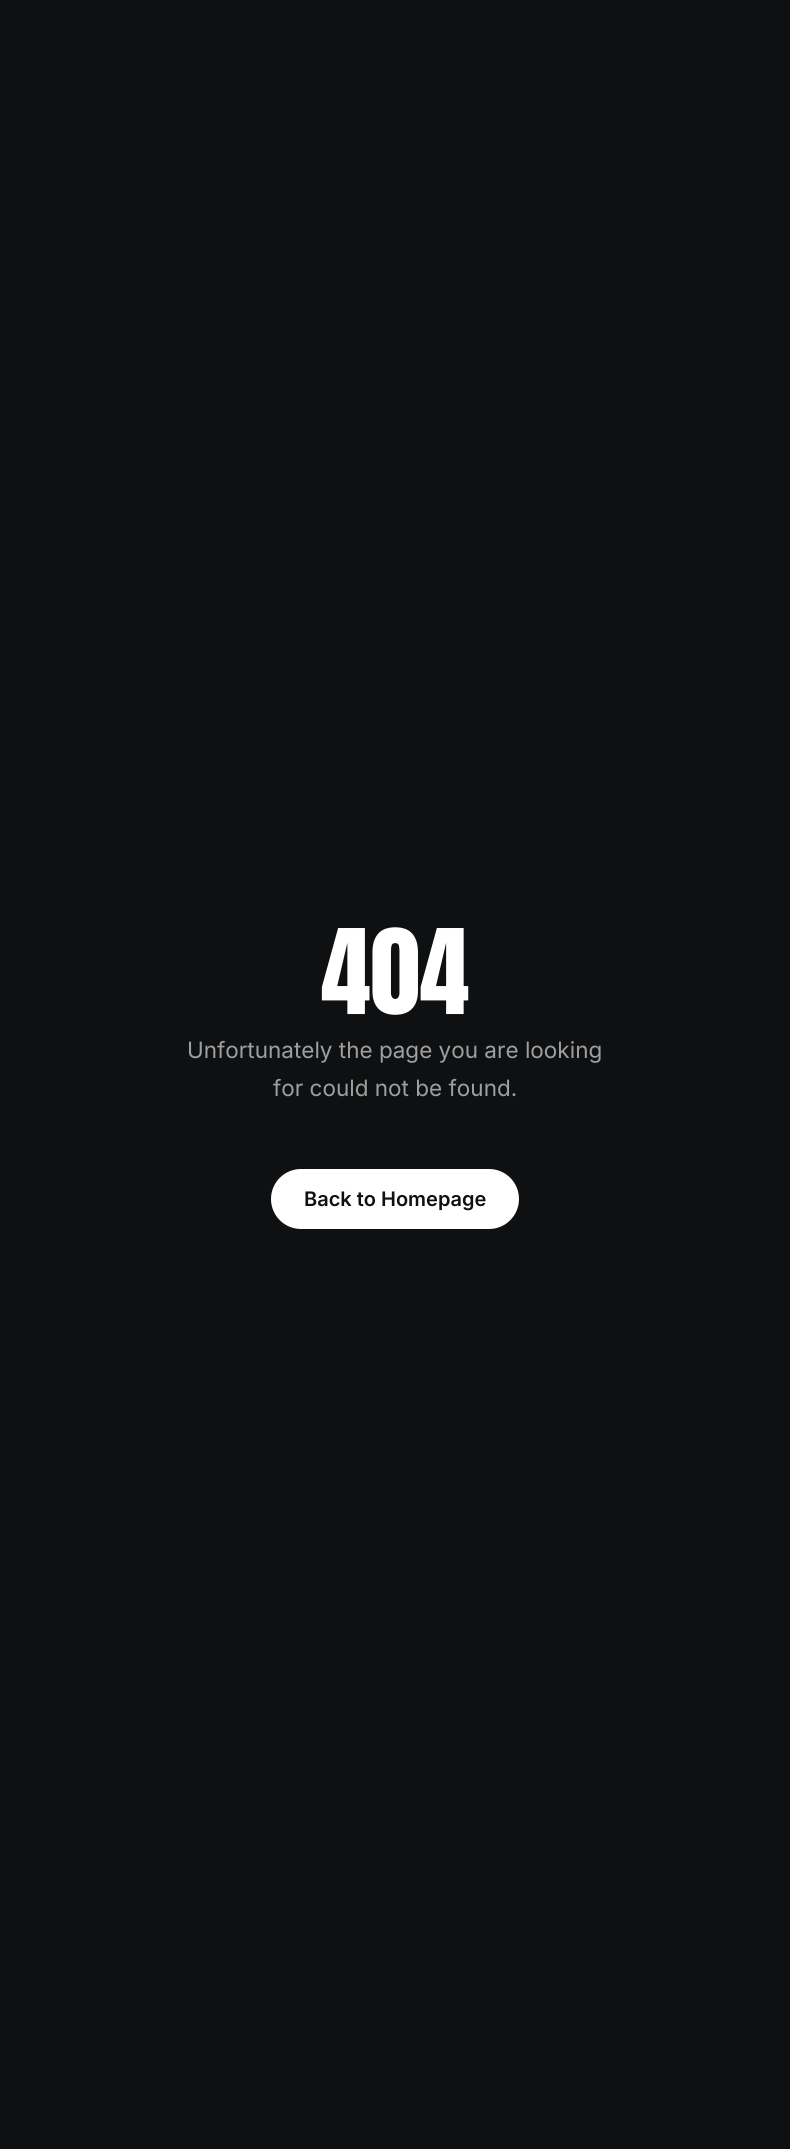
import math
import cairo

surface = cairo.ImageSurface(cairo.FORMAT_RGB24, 790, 2149)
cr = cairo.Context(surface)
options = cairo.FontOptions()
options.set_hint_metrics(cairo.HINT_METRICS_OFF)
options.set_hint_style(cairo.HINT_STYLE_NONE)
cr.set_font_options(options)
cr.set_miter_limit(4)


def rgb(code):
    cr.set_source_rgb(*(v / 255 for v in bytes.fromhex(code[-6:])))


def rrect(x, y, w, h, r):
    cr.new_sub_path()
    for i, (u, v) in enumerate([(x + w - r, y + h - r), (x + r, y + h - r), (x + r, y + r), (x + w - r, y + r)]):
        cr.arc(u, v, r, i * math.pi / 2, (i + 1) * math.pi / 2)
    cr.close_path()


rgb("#0e1011")
cr.paint()
rgb("#ffffff")
rrect(271, 1169, 248, 60, 30)
cr.fill()
cr.select_font_face("Anton SC")
cr.set_font_size(100)
cr.move_to(321, 1014)
cr.show_text("404")
cr.select_font_face("Inter")
cr.set_font_size(22.5)
rgb("#9f9fa0")
cr.move_to(187, 1058)
cr.show_text("Unfortunately the page you are looking")
cr.move_to(273, 1096)
cr.show_text("for could not be found.")
cr.select_font_face("Inter SemiBold")
cr.set_font_size(20)
rgb("#0e1011")
cr.move_to(304, 1206)
cr.show_text("Back to Homepage")
surface.write_to_png("page.png")
